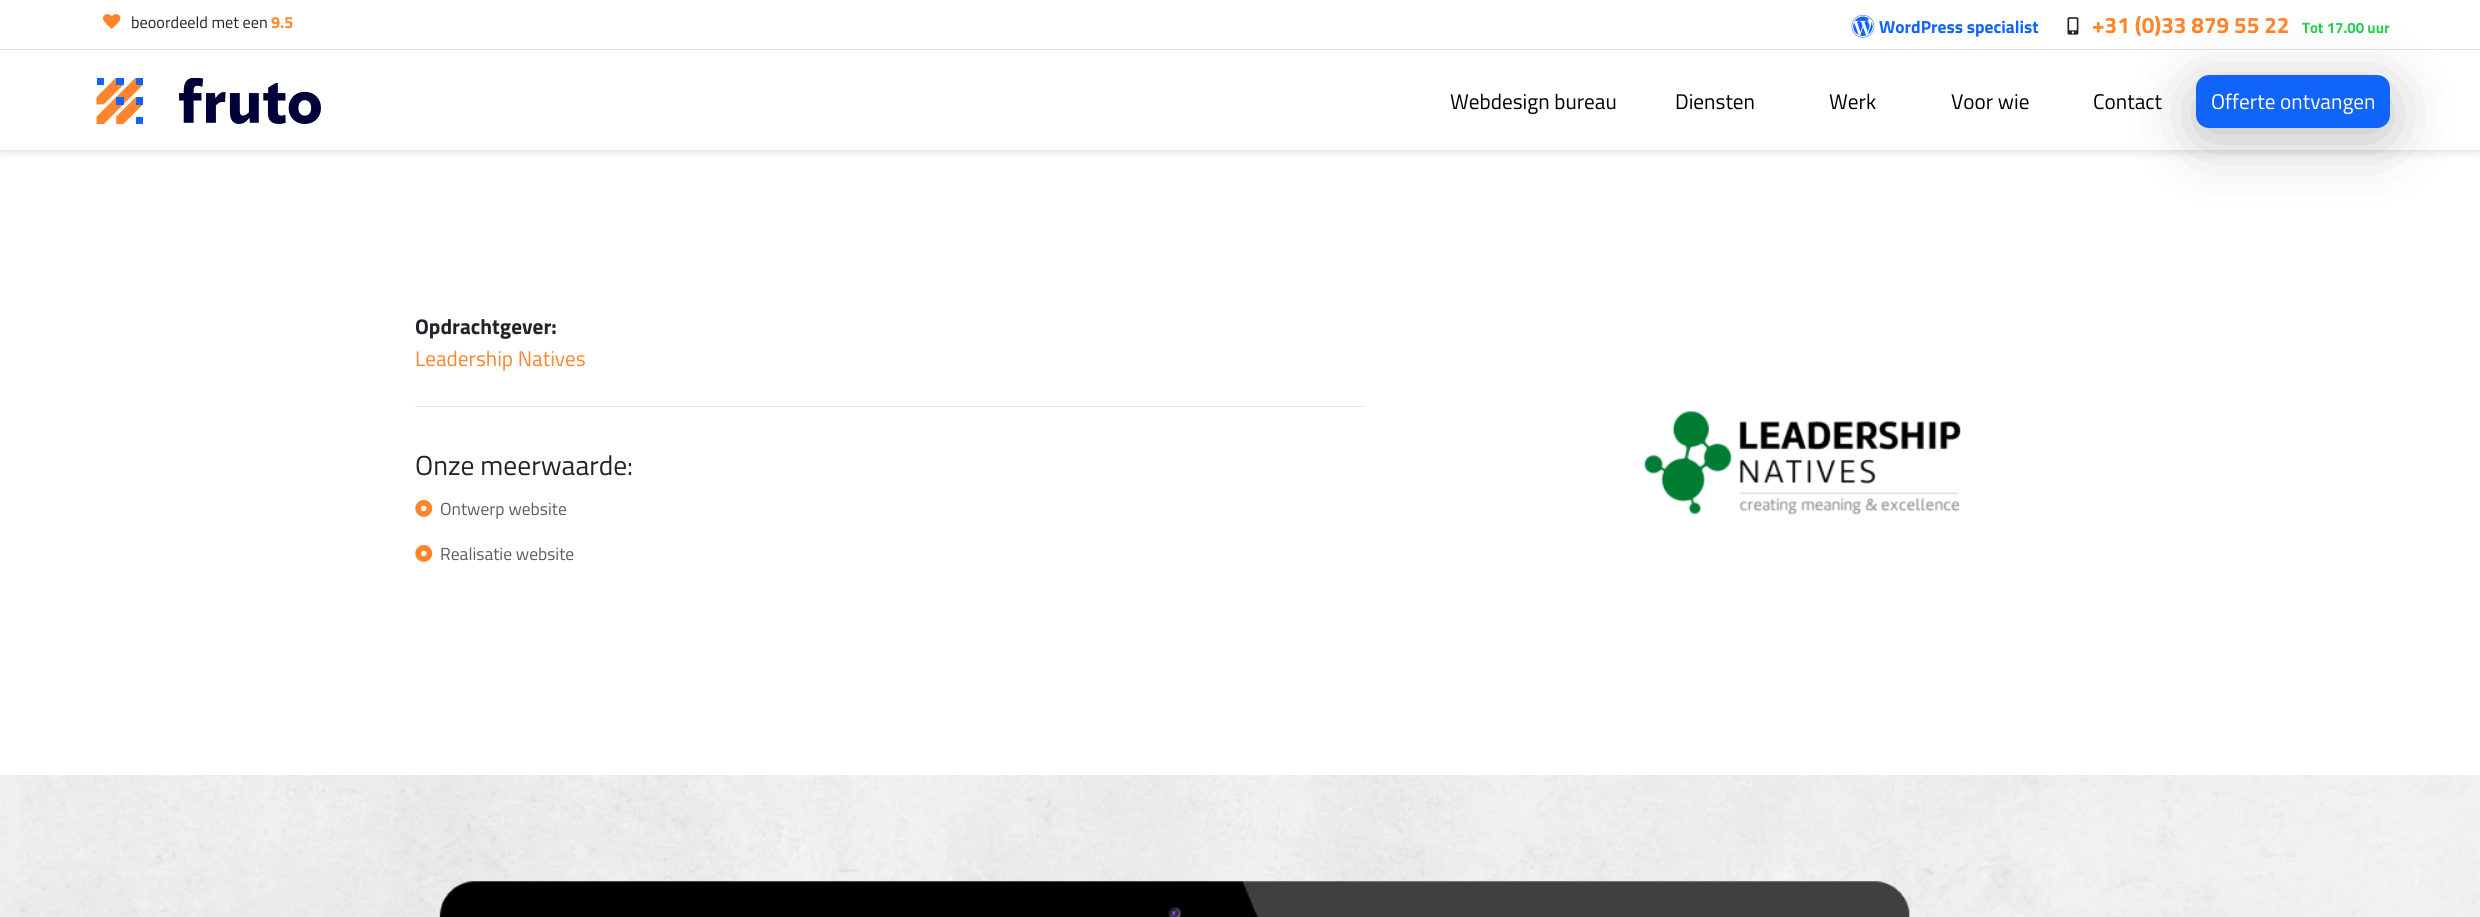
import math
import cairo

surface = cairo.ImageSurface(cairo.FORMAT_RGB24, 2480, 917)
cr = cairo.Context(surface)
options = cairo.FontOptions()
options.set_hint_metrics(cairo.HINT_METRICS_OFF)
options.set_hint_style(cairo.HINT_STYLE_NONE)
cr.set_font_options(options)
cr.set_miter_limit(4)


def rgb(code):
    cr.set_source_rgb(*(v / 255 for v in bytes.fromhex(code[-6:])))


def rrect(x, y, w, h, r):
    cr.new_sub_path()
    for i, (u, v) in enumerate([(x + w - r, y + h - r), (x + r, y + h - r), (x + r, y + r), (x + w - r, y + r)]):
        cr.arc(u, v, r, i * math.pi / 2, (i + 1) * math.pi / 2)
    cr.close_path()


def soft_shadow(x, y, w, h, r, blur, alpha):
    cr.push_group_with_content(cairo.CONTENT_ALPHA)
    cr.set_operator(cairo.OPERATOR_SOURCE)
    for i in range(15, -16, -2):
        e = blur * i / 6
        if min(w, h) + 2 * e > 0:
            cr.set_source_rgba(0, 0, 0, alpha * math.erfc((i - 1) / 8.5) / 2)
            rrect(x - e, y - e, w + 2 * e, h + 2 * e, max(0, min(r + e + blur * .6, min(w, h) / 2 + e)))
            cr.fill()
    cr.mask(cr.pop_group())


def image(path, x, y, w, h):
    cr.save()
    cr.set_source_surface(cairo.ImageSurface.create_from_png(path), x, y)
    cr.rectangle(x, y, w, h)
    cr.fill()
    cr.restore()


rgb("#ffffff")
cr.paint()
cr.save()
cr.rectangle(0, 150, 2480, 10)
cr.clip()
rgb("#c1c1c1")
soft_shadow(0, -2, 2480, 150, 0, 6, 1)
cr.restore()
rgb("#e1e1e1")
cr.rectangle(0, 49, 2480, 1)
cr.fill()
image("img/1.png", 103, 14, 18, 15)
image("img/2.png", 1851, 14, 24, 24)
image("img/3.png", 2067, 17, 12, 18)
image("img/4.png", 96, 78, 225, 46)
rgb("#000000")
soft_shadow(2196, 88, 194, 52, 13, 31, 0.25)
rgb("#1164fa")
rrect(2196, 75, 194, 53, 13)
cr.fill()
rgb("#e5e5e5")
cr.rectangle(415, 406, 948, 1)
cr.fill()
image("img/5.png", 415, 500, 18, 17)
image("img/5.png", 415, 545, 18, 17)
image("img/6.png", 1644, 411, 317, 104)
image("img/7.png", 0, 775, 2480, 142)
image("img/8.png", 439, 881, 1471, 36)
cr.select_font_face("Titillium Web")
cr.set_font_size(16.25)
rgb("#212529")
cr.move_to(131, 28)
cr.show_text("beoordeeld met een")
cr.select_font_face("Titillium Web", cairo.FONT_SLANT_NORMAL, cairo.FONT_WEIGHT_BOLD)
rgb("#ff852d")
cr.move_to(271, 28)
cr.show_text("9.5")
cr.set_font_size(17.5)
rgb("#1164fa")
cr.move_to(1879, 33)
cr.show_text("WordPress specialist")
cr.set_font_size(22.5)
rgb("#ff852d")
cr.move_to(2092, 33)
cr.show_text("+31 (0)33 879 55 22")
cr.set_font_size(15)
rgb("#25ce4c")
cr.move_to(2302, 33)
cr.show_text("Tot 17.00 uur")
cr.select_font_face("Titillium Web")
cr.set_font_size(21.25)
rgb("#000000")
for x, y, s in [
    (1450, 109, "Webdesign bureau"),
    (1675, 109, "Diensten"),
    (1829, 109, "Werk"),
    (1951, 109, "Voor wie"),
    (2093, 109, "Contact"),
]:
    cr.move_to(x, y)
    cr.show_text(s)
rgb("#ffffff")
cr.move_to(2211, 109)
cr.show_text("Offerte ontvangen")
cr.select_font_face("Titillium Web", cairo.FONT_SLANT_NORMAL, cairo.FONT_WEIGHT_BOLD)
rgb("#212529")
cr.move_to(415, 334)
cr.show_text("Opdrachtgever:")
cr.select_font_face("Titillium Web")
rgb("#ff852d")
cr.move_to(415, 366)
cr.show_text("Leadership Natives")
cr.set_font_size(27.5)
rgb("#212529")
cr.move_to(415, 475)
cr.show_text("Onze meerwaarde:")
cr.set_font_size(17.5)
rgb("#5e5e5e")
cr.move_to(440, 515)
cr.show_text("Ontwerp website")
cr.move_to(440, 560)
cr.show_text("Realisatie website")
surface.write_to_png("page.png")
